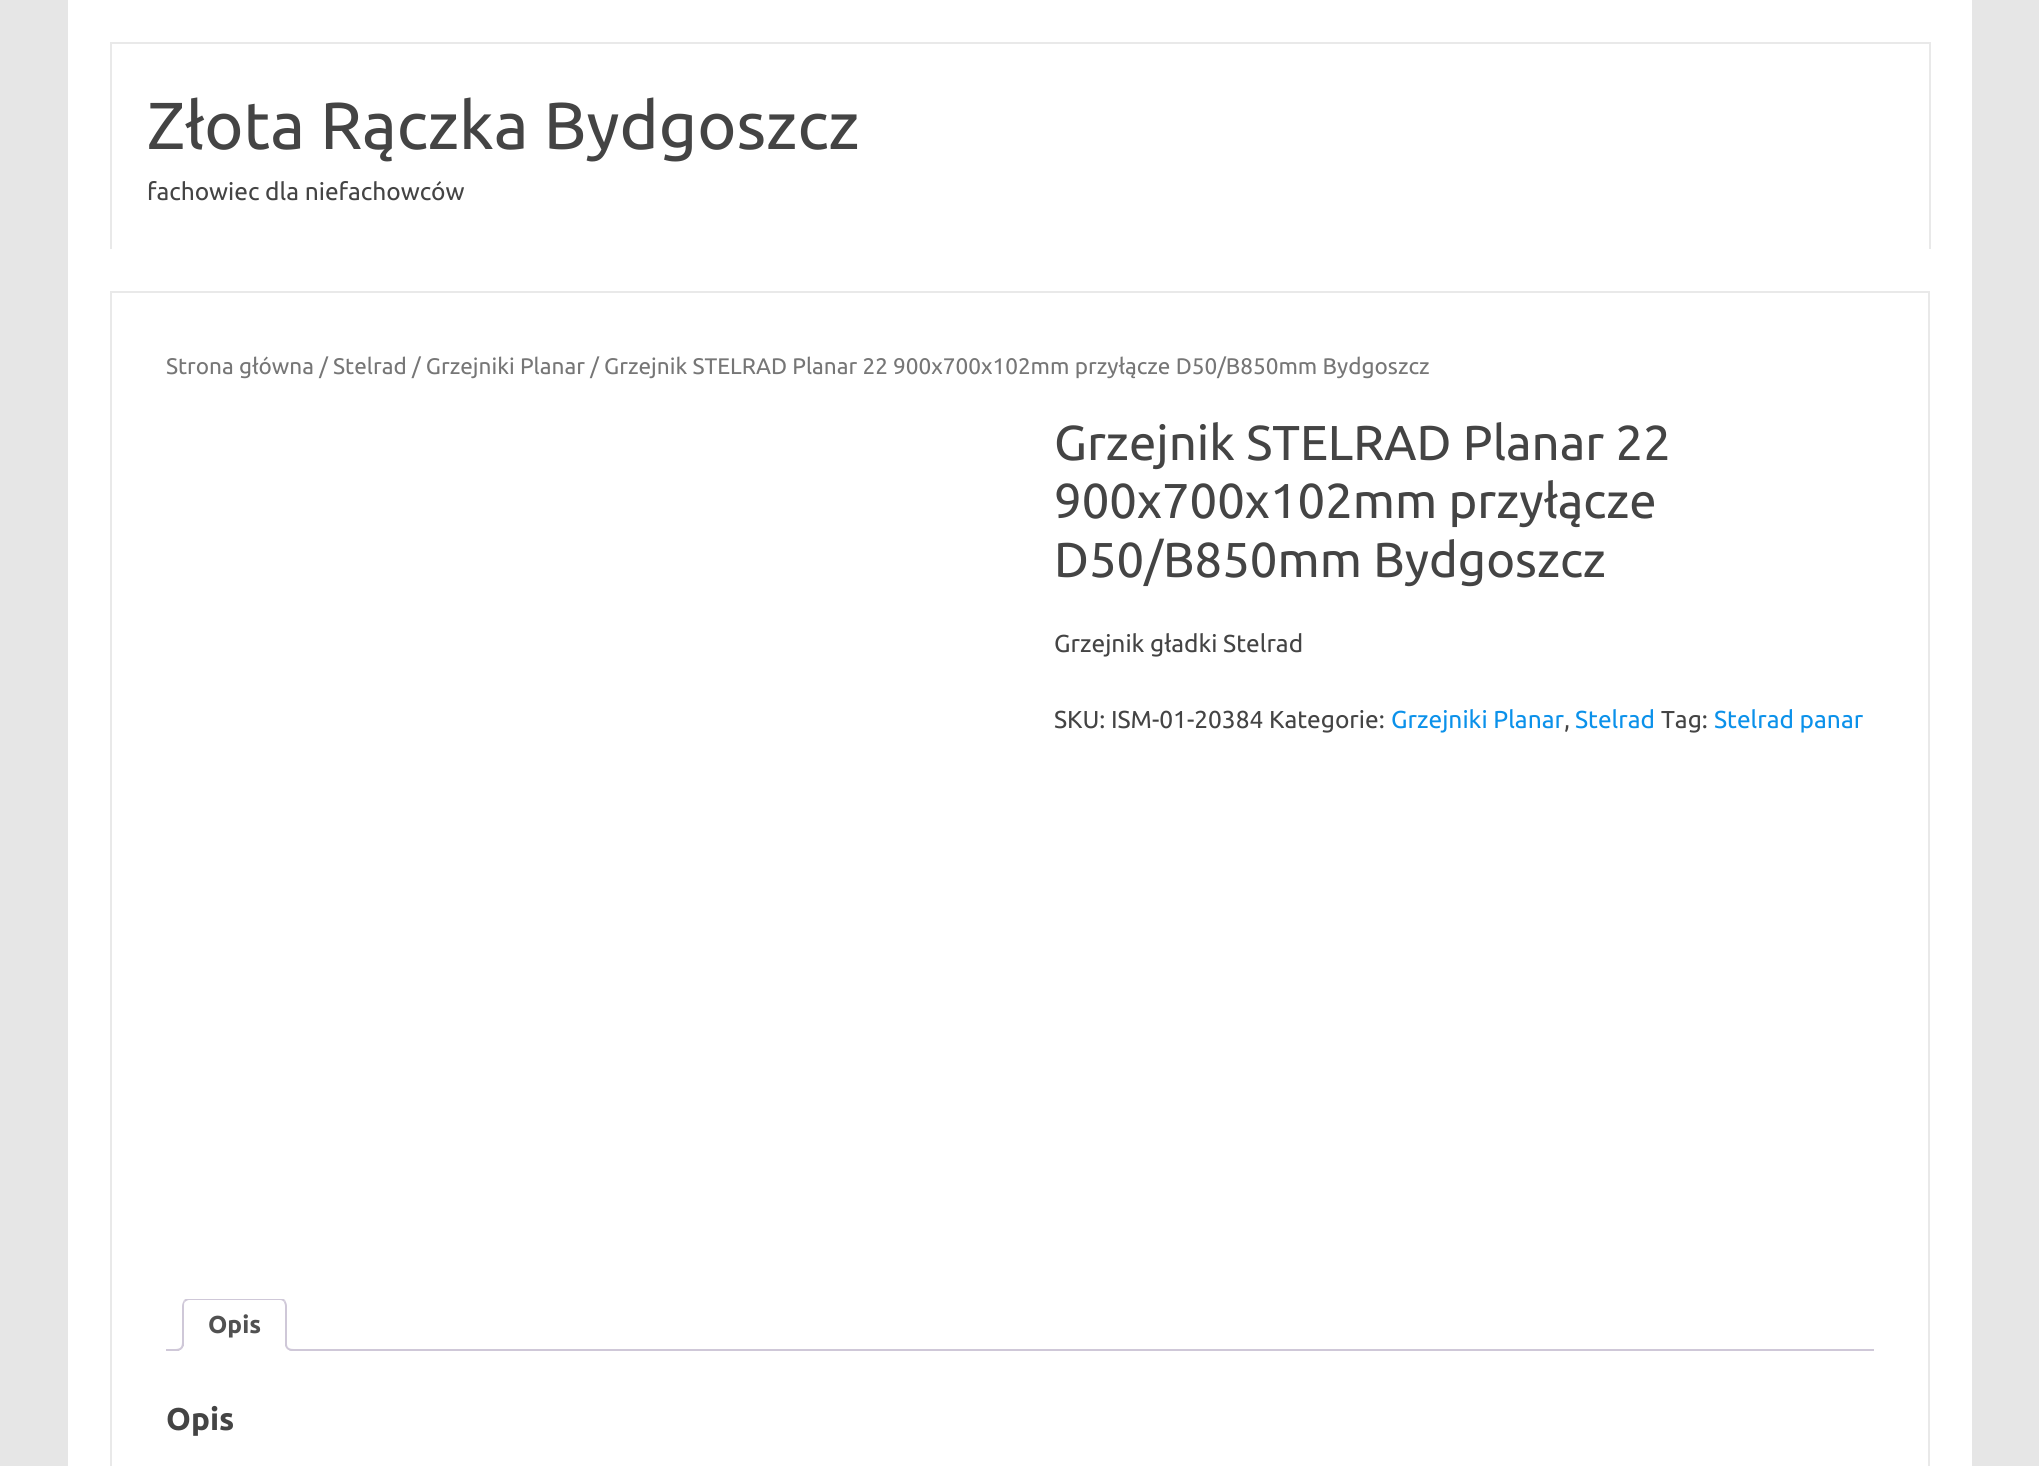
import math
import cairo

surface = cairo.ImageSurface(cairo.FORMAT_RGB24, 2039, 1466)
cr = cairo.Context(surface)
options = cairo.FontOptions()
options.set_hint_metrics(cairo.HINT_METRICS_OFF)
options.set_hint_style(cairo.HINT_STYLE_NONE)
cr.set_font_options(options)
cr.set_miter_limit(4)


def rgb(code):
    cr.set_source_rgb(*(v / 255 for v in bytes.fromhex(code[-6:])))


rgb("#e6e6e6")
cr.paint()
for x, y, w, h, color in [
    (68, 0, 1904, 1466, "#ffffff"),
    (110, 42, 1820, 2, "#e9e9e9"),
    (1929, 42, 2, 207, "#e9e9e9"),
    (110, 42, 2, 207, "#e9e9e9"),
]:
    rgb(color)
    cr.rectangle(x, y, w, h)
    cr.fill()
cr.rectangle(111, 292, 1818, 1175)
cr.stroke()
rgb("#cfc8d8")
cr.rectangle(166, 1349, 1708, 2)
cr.fill()
rgb("#ffffff")
cr.new_path()
cr.move_to(189, 1299)
cr.line_to(280, 1299)
cr.curve_to(284, 1299, 287, 1302, 287, 1306)
cr.line_to(287, 1351)
cr.line_to(182, 1351)
cr.line_to(182, 1306)
cr.curve_to(182, 1302, 185, 1299, 189, 1299)
cr.close_path()
cr.fill()
cr.save()
cr.rectangle(166, 1299, 1708, 52)
cr.clip()
rgb("#cfc8d8")
cr.new_path()
cr.move_to(189, 1300)
cr.curve_to(188, 1300, 186, 1301, 185, 1302)
cr.line_to(184, 1300)
cr.line_to(187, 1298)
cr.line_to(282, 1298)
cr.line_to(285, 1300)
cr.line_to(284, 1302)
cr.curve_to(283, 1301, 282, 1300, 280, 1300)
cr.close_path()
cr.fill()
cr.restore()
rgb("#cfc8d8")
cr.new_path()
cr.move_to(287, 1351)
cr.line_to(287, 1306)
cr.curve_to(287, 1304, 286, 1302, 285, 1300)
cr.line_to(284, 1302)
cr.curve_to(284, 1303, 285, 1304, 285, 1306)
cr.line_to(285, 1349)
cr.close_path()
cr.fill()
rgb("#ffffff")
cr.new_path()
cr.move_to(287, 1351)
cr.line_to(285, 1349)
cr.line_to(184, 1349)
cr.line_to(182, 1351)
cr.close_path()
cr.fill()
rgb("#cfc8d8")
cr.new_path()
cr.move_to(182, 1351)
cr.line_to(184, 1349)
cr.line_to(184, 1306)
cr.curve_to(184, 1304, 184, 1303, 185, 1302)
cr.line_to(184, 1300)
cr.curve_to(183, 1302, 182, 1304, 182, 1306)
cr.close_path()
cr.fill()
cr.save()
cr.rectangle(166, 1299, 1708, 52)
cr.clip()
rgb("#ffffff")
cr.new_path()
cr.move_to(179, 1350.5)
cr.line_to(179, 1355)
cr.curve_to(185, 1355, 187, 1351.5, 187, 1346)
cr.line_to(183.5, 1346)
cr.curve_to(183, 1348, 181, 1350, 179, 1350.5)
cr.close_path()
cr.fill()
cr.restore()
cr.set_fill_rule(cairo.FILL_RULE_EVEN_ODD)
cr.new_path()
cr.move_to(175, 1342)
cr.line_to(184, 1342)
cr.curve_to(184, 1348.5, 181, 1351, 175, 1351)
cr.close_path()
cr.move_to(175, 1342)
cr.line_to(182, 1342)
cr.curve_to(182, 1347.5, 180, 1349, 175, 1349)
cr.close_path()
cr.fill()
cr.save()
cr.set_fill_rule(cairo.FILL_RULE_WINDING)
cr.rectangle(166, 1299, 1708, 52)
cr.clip()
rgb("#ffffff")
cr.new_path()
cr.move_to(282, 1346)
cr.curve_to(282, 1352.5, 284.5, 1355, 291, 1355)
cr.line_to(291, 1351)
cr.curve_to(288.5, 1350.5, 286.5, 1348.5, 285.5, 1346)
cr.close_path()
cr.fill()
cr.restore()
cr.new_path()
cr.move_to(285, 1342)
cr.line_to(294, 1342)
cr.line_to(294, 1351)
cr.curve_to(289.5, 1351, 285, 1349.5, 285, 1344)
cr.close_path()
cr.move_to(287, 1342)
cr.line_to(294, 1342)
cr.line_to(294, 1349)
cr.curve_to(290.5, 1349, 287, 1348.5, 287, 1344)
cr.close_path()
cr.fill()
cr.select_font_face("Ubuntu")
cr.set_font_size(66.5)
rgb("#444444")
cr.move_to(147, 149)
cr.show_text("Złota Rączka Bydgoszcz")
cr.set_font_size(24.5)
cr.move_to(147, 200)
cr.show_text("fachowiec dla niefachowców")
cr.set_font_size(22.55)
rgb("#767676")
cr.move_to(166, 374)
cr.show_text("Strona główna / Stelrad / Grzejniki Planar / Grzejnik STELRAD Planar 22 900x700x102mm przyłącze D50/B850mm Bydgoszcz")
cr.set_font_size(49)
rgb("#444444")
for x, y, s in [
    (1054, 460, "Grzejnik STELRAD Planar 22"),
    (1054, 518, "900x700x102mm przyłącze"),
    (1054, 577, "D50/B850mm Bydgoszcz"),
]:
    cr.move_to(x, y)
    cr.show_text(s)
cr.set_font_size(24.5)
cr.move_to(1054, 652)
cr.show_text("Grzejnik gładki Stelrad")
cr.move_to(1054, 728)
cr.show_text("SKU: ISM-01-20384 Kategorie:")
rgb("#0b91ea")
cr.move_to(1391, 728)
cr.show_text("Grzejniki Planar")
rgb("#444444")
cr.move_to(1564, 728)
cr.show_text(",")
rgb("#0b91ea")
cr.move_to(1575, 728)
cr.show_text("Stelrad")
rgb("#444444")
cr.move_to(1661, 728)
cr.show_text("Tag:")
rgb("#0b91ea")
cr.move_to(1714, 728)
cr.show_text("Stelrad panar")
cr.select_font_face("Ubuntu", cairo.FONT_SLANT_NORMAL, cairo.FONT_WEIGHT_BOLD)
rgb("#515151")
cr.move_to(208, 1333)
cr.show_text("Opis")
cr.set_font_size(31.5)
rgb("#444444")
cr.move_to(166, 1430)
cr.show_text("Opis")
surface.write_to_png("page.png")
